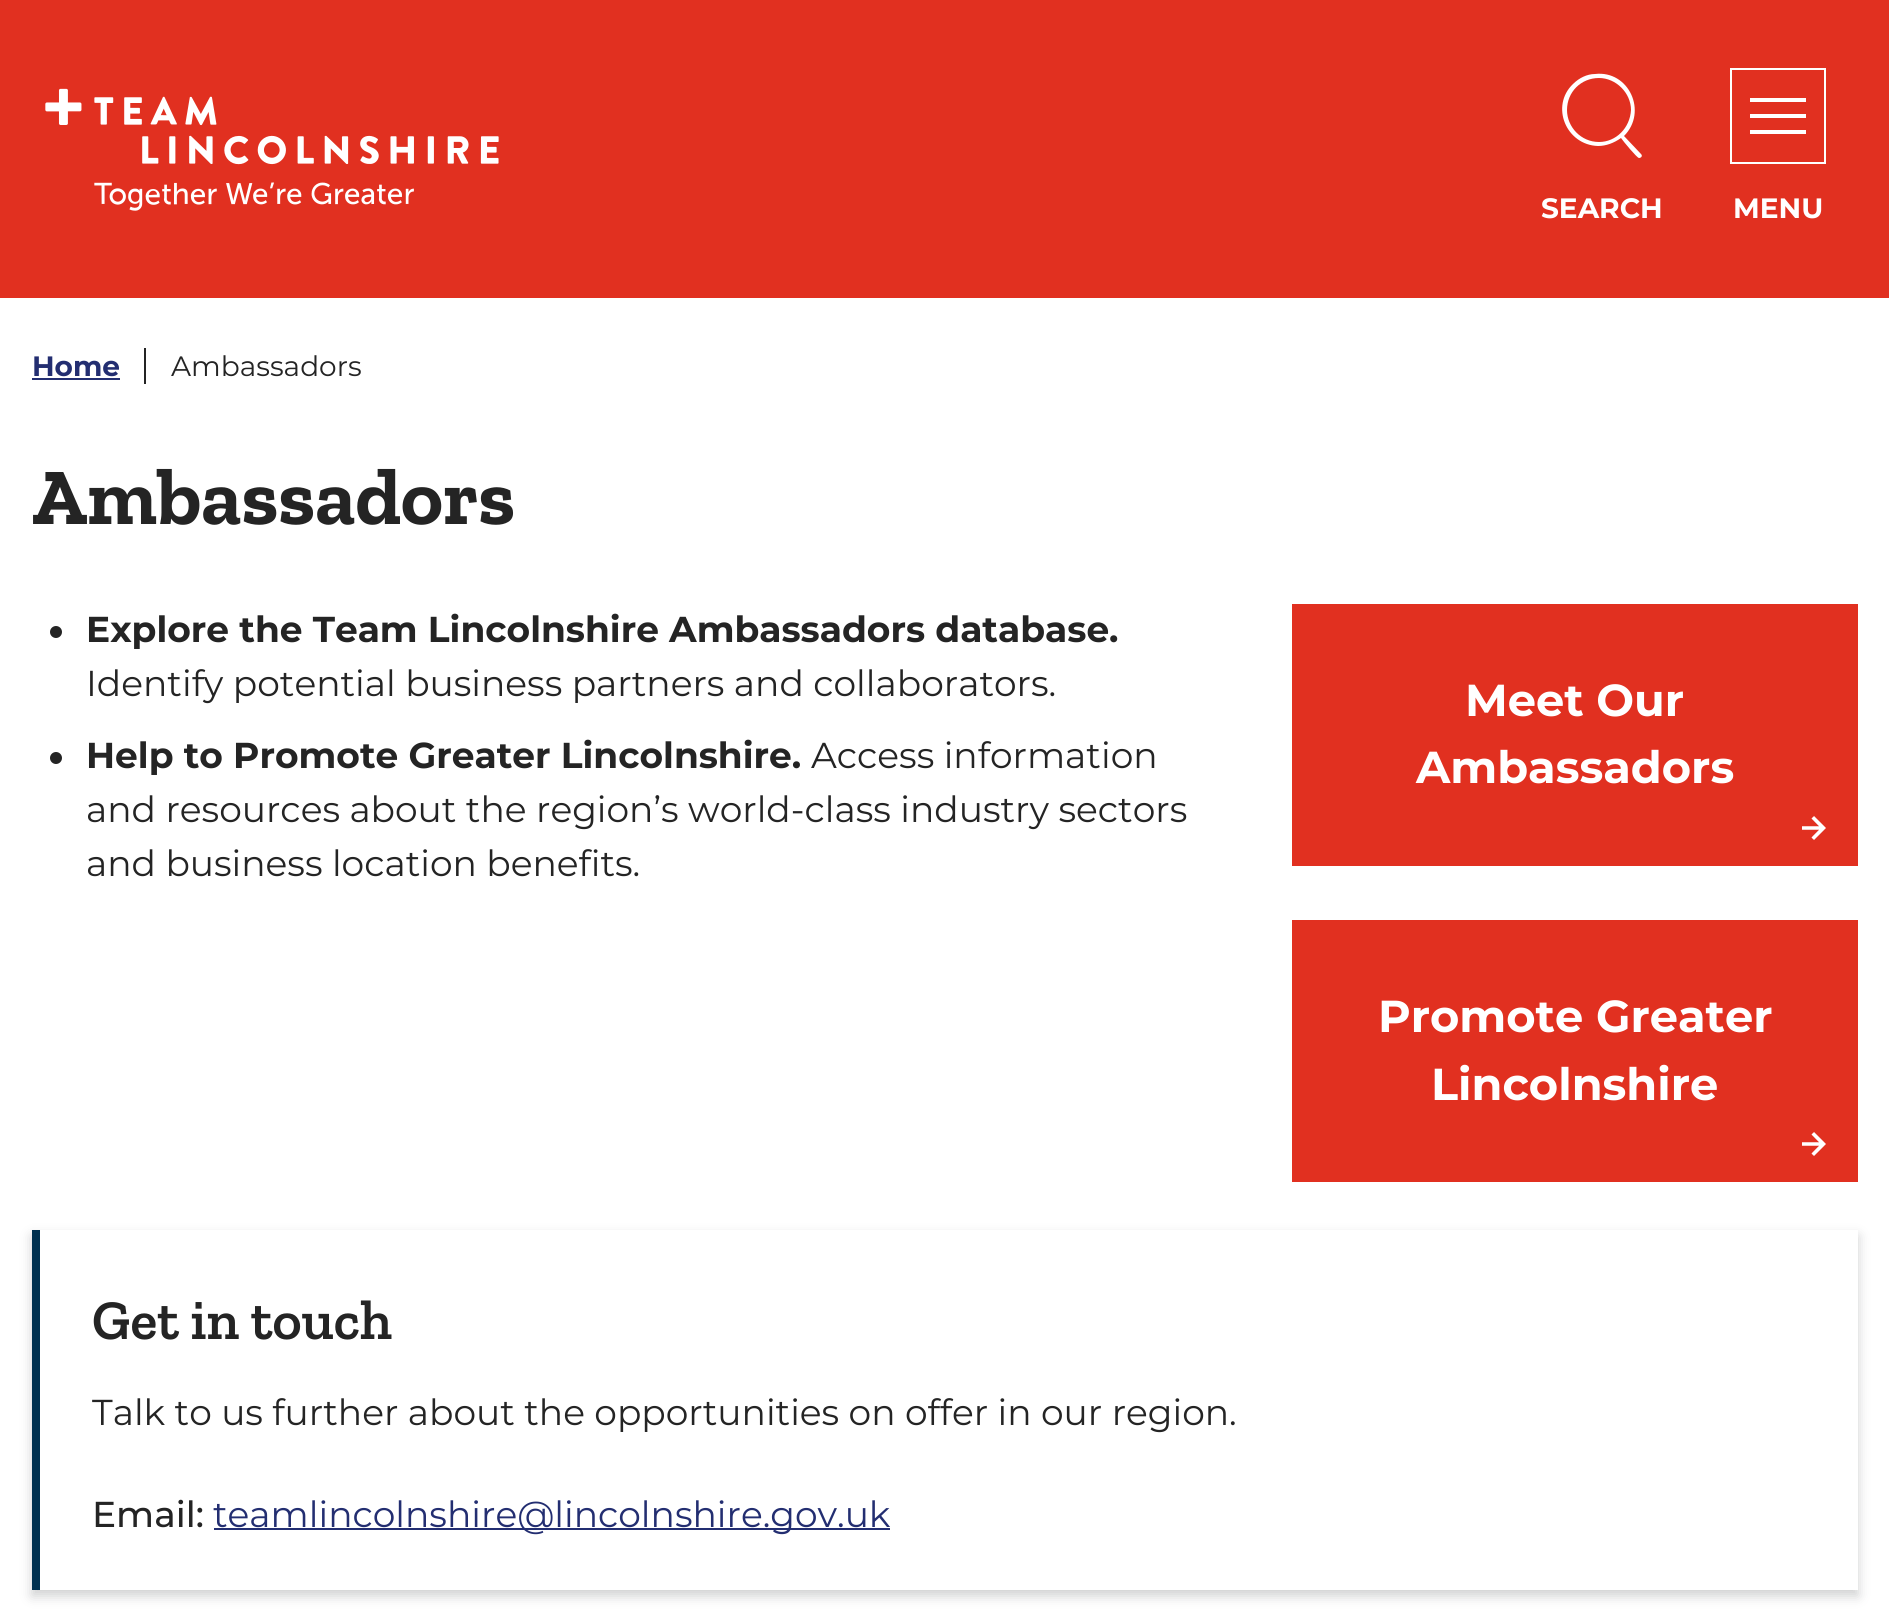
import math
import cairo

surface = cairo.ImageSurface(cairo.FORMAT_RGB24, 1889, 1615)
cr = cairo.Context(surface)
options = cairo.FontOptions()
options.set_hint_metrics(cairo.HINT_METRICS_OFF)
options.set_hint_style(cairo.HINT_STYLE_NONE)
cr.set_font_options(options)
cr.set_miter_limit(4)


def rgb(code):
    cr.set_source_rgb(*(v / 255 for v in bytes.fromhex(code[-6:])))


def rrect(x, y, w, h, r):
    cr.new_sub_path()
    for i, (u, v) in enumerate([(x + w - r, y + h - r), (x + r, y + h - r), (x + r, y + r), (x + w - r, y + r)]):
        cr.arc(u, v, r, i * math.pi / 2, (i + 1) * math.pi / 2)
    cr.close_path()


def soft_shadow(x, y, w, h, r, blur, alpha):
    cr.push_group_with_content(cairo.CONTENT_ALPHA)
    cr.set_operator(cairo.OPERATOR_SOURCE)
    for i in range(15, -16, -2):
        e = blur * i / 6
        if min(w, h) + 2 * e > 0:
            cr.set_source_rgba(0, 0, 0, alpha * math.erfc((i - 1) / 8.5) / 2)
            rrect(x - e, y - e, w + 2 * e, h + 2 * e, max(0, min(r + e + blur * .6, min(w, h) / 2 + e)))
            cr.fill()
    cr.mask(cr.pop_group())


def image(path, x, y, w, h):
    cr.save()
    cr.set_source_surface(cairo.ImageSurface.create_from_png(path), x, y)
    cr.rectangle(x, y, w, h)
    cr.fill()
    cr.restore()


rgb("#ffffff")
cr.paint()
rgb("#e13020")
cr.rectangle(0, 0, 1889, 298)
cr.fill()
image("img/1.png", 45, 88, 454, 123)
rgb("#ffffff")
cr.new_path()
cr.move_to(1641, 154)
cr.line_to(1624, 136)
cr.curve_to(1648, 112, 1629, 70, 1595, 74)
cr.curve_to(1587, 74, 1579, 78, 1573, 84)
cr.curve_to(1550, 106, 1566, 145, 1598, 146)
cr.curve_to(1606, 146, 1614, 143, 1621, 138)
cr.curve_to(1623, 141, 1637, 158, 1639, 158)
cr.curve_to(1641, 158, 1643, 156, 1641, 154)
cr.close_path()
cr.move_to(1599, 142)
cr.curve_to(1581, 142, 1567, 127, 1567, 110)
cr.curve_to(1567, 92, 1581, 78, 1599, 78)
cr.curve_to(1616, 78, 1631, 93, 1631, 110)
cr.curve_to(1630, 128, 1616, 142, 1599, 142)
cr.close_path()
cr.fill()
cr.rectangle(1731, 69, 94, 94)
cr.stroke()
for x, y, w, h, color in [
    (1750, 98, 56, 4, "#ffffff"),
    (1750, 114, 56, 4, "#ffffff"),
    (1750, 130, 56, 4, "#ffffff"),
    (32, 378, 88, 2, "#232e71"),
    (144, 348, 2, 36, "#242424"),
]:
    rgb(color)
    cr.rectangle(x, y, w, h)
    cr.fill()
cr.arc(56, 632, 6, 0, 2 * math.pi)
cr.fill()
cr.arc(56, 758, 6, 0, 2 * math.pi)
cr.fill()
rgb("#e13020")
cr.rectangle(1292, 604, 566, 262)
cr.fill()
image("img/2.png", 1802, 816, 24, 24)
cr.rectangle(1292, 920, 566, 262)
cr.fill()
image("img/2.png", 1802, 1132, 24, 24)
cr.save()
cr.set_fill_rule(cairo.FILL_RULE_EVEN_ODD)
cr.new_path()
cr.move_to(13, 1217)
cr.line_to(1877, 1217)
cr.line_to(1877, 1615)
cr.line_to(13, 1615)
cr.close_path()
cr.move_to(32, 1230)
cr.line_to(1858, 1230)
cr.line_to(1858, 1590)
cr.line_to(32, 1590)
cr.close_path()
cr.clip()
rgb("#616365")
soft_shadow(32, 1236, 1826, 360, 0, 6, 0.3)
cr.restore()
rgb("#003150")
cr.rectangle(32, 1230, 8, 360)
cr.fill()
rgb("#232e71")
cr.rectangle(214, 1528, 676, 2)
cr.fill()
cr.select_font_face("Montserrat", cairo.FONT_SLANT_NORMAL, cairo.FONT_WEIGHT_BOLD)
cr.set_font_size(28)
rgb("#ffffff")
cr.move_to(1541, 218)
cr.show_text("SEARCH")
cr.move_to(1733, 218)
cr.show_text("MENU")
rgb("#232e71")
cr.move_to(32, 376)
cr.show_text("Home")
cr.select_font_face("Montserrat")
rgb("#242424")
cr.move_to(171, 376)
cr.show_text("Ambassadors")
cr.select_font_face("Zilla Slab", cairo.FONT_SLANT_NORMAL, cairo.FONT_WEIGHT_BOLD)
cr.set_font_size(80)
cr.move_to(32, 524)
cr.show_text("Ambassadors")
cr.select_font_face("Montserrat", cairo.FONT_SLANT_NORMAL, cairo.FONT_WEIGHT_BOLD)
cr.set_font_size(36)
cr.move_to(86, 642)
cr.show_text("Explore the Team Lincolnshire Ambassadors database.")
cr.select_font_face("Montserrat")
cr.move_to(86, 696)
cr.show_text("Identify potential business partners and collaborators.")
cr.select_font_face("Montserrat", cairo.FONT_SLANT_NORMAL, cairo.FONT_WEIGHT_BOLD)
cr.move_to(86, 768)
cr.show_text("Help to Promote Greater Lincolnshire.")
cr.select_font_face("Montserrat")
for x, y, s in [
    (811, 768, "Access information"),
    (86, 822, "and resources about the region’s world-class industry sectors"),
    (86, 876, "and business location benefits."),
]:
    cr.move_to(x, y)
    cr.show_text(s)
cr.select_font_face("Montserrat", cairo.FONT_SLANT_NORMAL, cairo.FONT_WEIGHT_BOLD)
cr.set_font_size(44.75)
rgb("#ffffff")
for x, y, s in [
    (1465, 716, "Meet Our"),
    (1416, 783, "Ambassadors"),
    (1378, 1032, "Promote Greater"),
    (1431, 1100, "Lincolnshire"),
]:
    cr.move_to(x, y)
    cr.show_text(s)
cr.select_font_face("Zilla Slab SemiBold")
cr.set_font_size(56)
rgb("#242424")
cr.move_to(92, 1339)
cr.show_text("Get in touch")
cr.select_font_face("Montserrat")
cr.set_font_size(36)
cr.move_to(92, 1425)
cr.show_text("Talk to us further about the opportunities on offer in our region.")
cr.select_font_face("Montserrat Medium")
cr.move_to(92, 1527)
cr.show_text("Email:")
cr.select_font_face("Montserrat")
rgb("#232e71")
cr.move_to(213, 1527)
cr.show_text("teamlincolnshire@lincolnshire.gov.uk")
surface.write_to_png("page.png")
